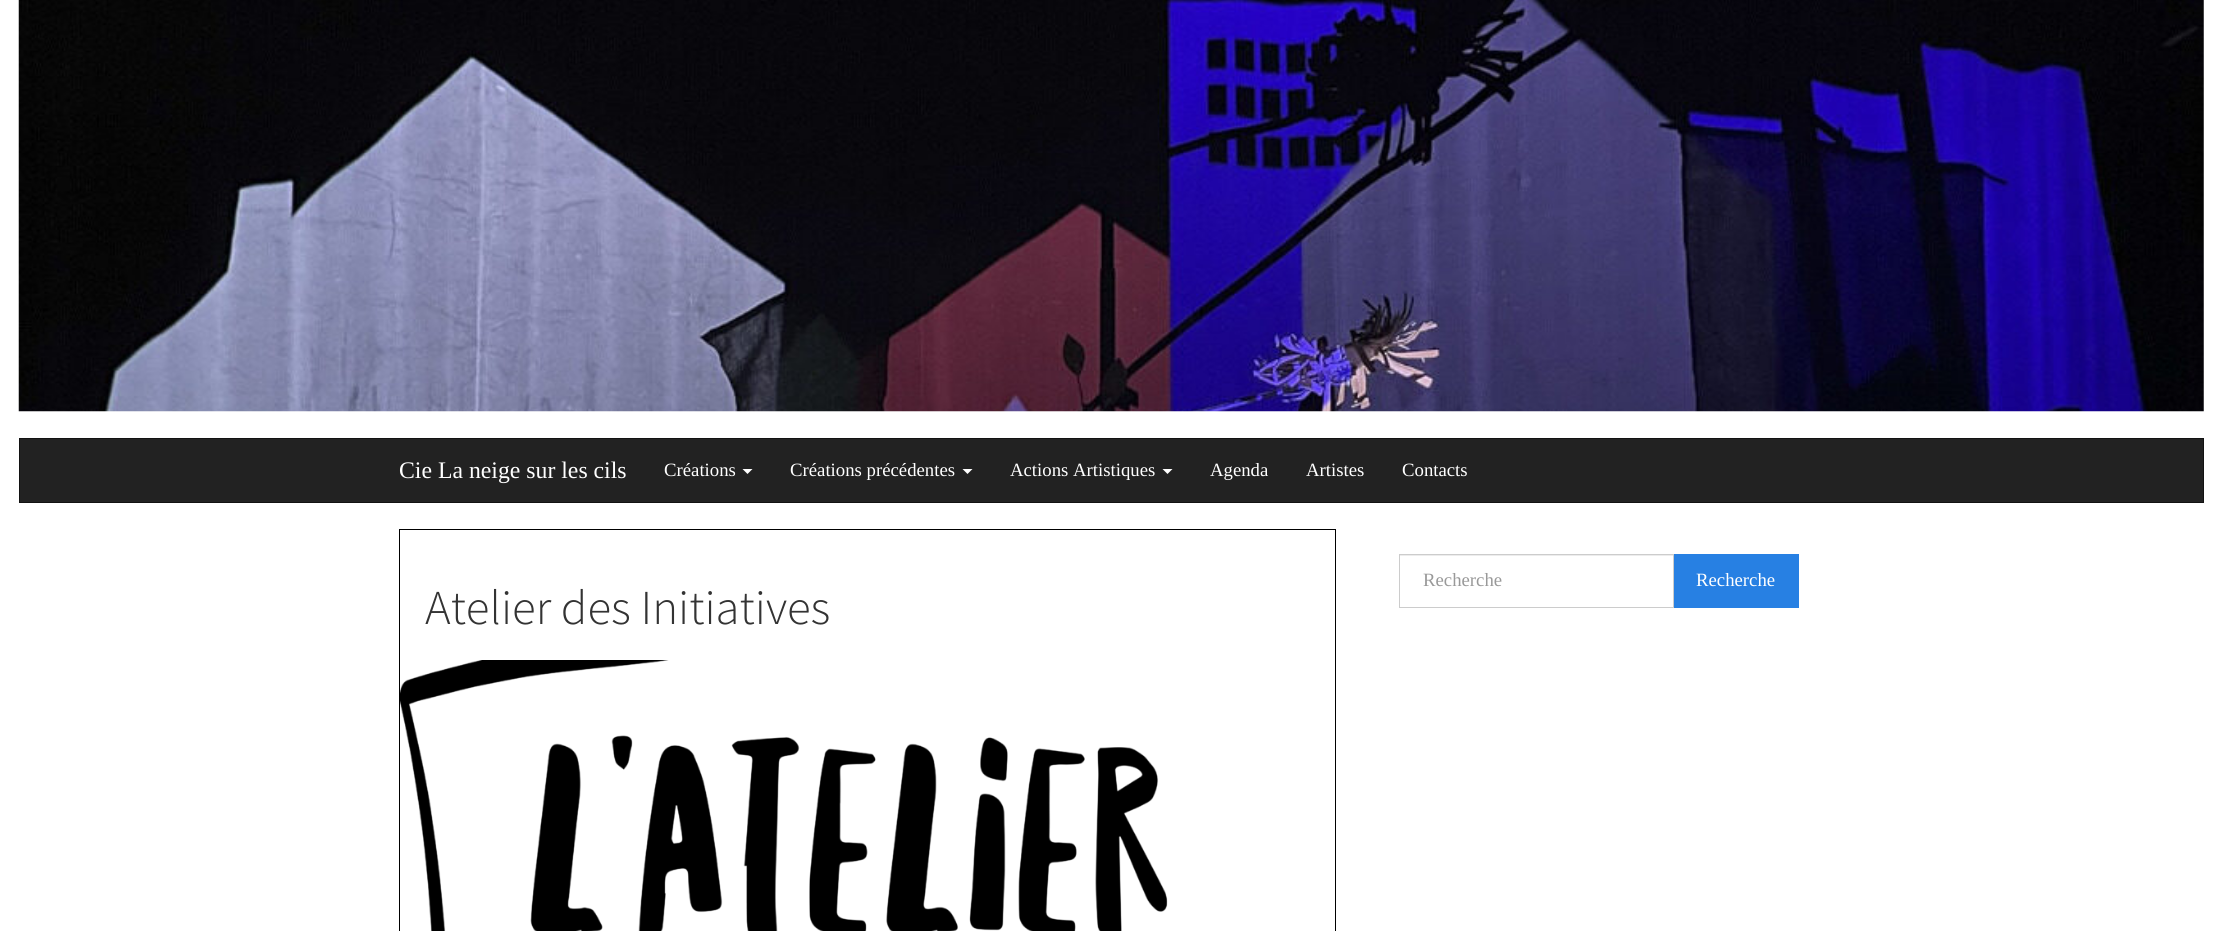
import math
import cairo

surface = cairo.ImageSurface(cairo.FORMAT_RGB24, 2222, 931)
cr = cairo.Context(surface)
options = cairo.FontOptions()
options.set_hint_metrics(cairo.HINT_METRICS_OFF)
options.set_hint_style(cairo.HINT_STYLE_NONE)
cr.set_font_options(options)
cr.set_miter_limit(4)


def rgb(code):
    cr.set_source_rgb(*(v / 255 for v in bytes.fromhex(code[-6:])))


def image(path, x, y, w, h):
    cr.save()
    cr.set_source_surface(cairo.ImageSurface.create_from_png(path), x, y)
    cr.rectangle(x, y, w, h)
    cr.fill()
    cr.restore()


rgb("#ffffff")
cr.paint()
image("img/1.png", 18, 0, 2186, 412)
rgb("#222222")
cr.rectangle(19.5, 438.5, 2184, 64)
cr.fill_preserve()
rgb("#121212")
cr.set_line_width(1)
cr.stroke()
rgb("#ffffff")
cr.new_path()
cr.move_to(742.5, 469)
cr.line_to(752.5, 469)
cr.line_to(747.5, 474)
cr.close_path()
cr.fill()
cr.new_path()
cr.move_to(962.5, 469)
cr.line_to(972.5, 469)
cr.line_to(967.5, 474)
cr.close_path()
cr.fill()
cr.new_path()
cr.move_to(1162.5, 469)
cr.line_to(1172.5, 469)
cr.line_to(1167.5, 474)
cr.close_path()
cr.fill()
rgb("#ececec")
cr.rectangle(1400, 555, 273, 1)
cr.fill()
cr.rectangle(1399.5, 554.5, 274, 53)
rgb("#cccccc")
cr.stroke()
rgb("#2780e3")
cr.rectangle(1674, 554, 125, 54)
cr.fill()
cr.rectangle(399.5, 529.5, 936, 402)
rgb("#000000")
cr.stroke()
image("img/2.png", 400, 660, 768, 271)
cr.select_font_face("Liberation Serif")
cr.set_font_size(23.75)
rgb("#ffffff")
cr.move_to(399, 478)
cr.show_text("Cie La neige sur les cils")
cr.set_font_size(18.75)
for x, y, s in [
    (664, 476, "Créations"),
    (790, 476, "Créations précédentes"),
    (1010, 476, "Actions Artistiques"),
    (1210, 476, "Agenda"),
    (1306, 476, "Artistes"),
    (1402, 476, "Contacts"),
]:
    cr.move_to(x, y)
    cr.show_text(s)
rgb("#999999")
cr.move_to(1423, 586)
cr.show_text("Recherche")
rgb("#ffffff")
cr.move_to(1696, 586)
cr.show_text("Recherche")
cr.select_font_face("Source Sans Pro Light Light")
cr.set_font_size(48.75)
rgb("#333333")
cr.move_to(425, 624)
cr.show_text("Atelier des Initiatives")
surface.write_to_png("page.png")
